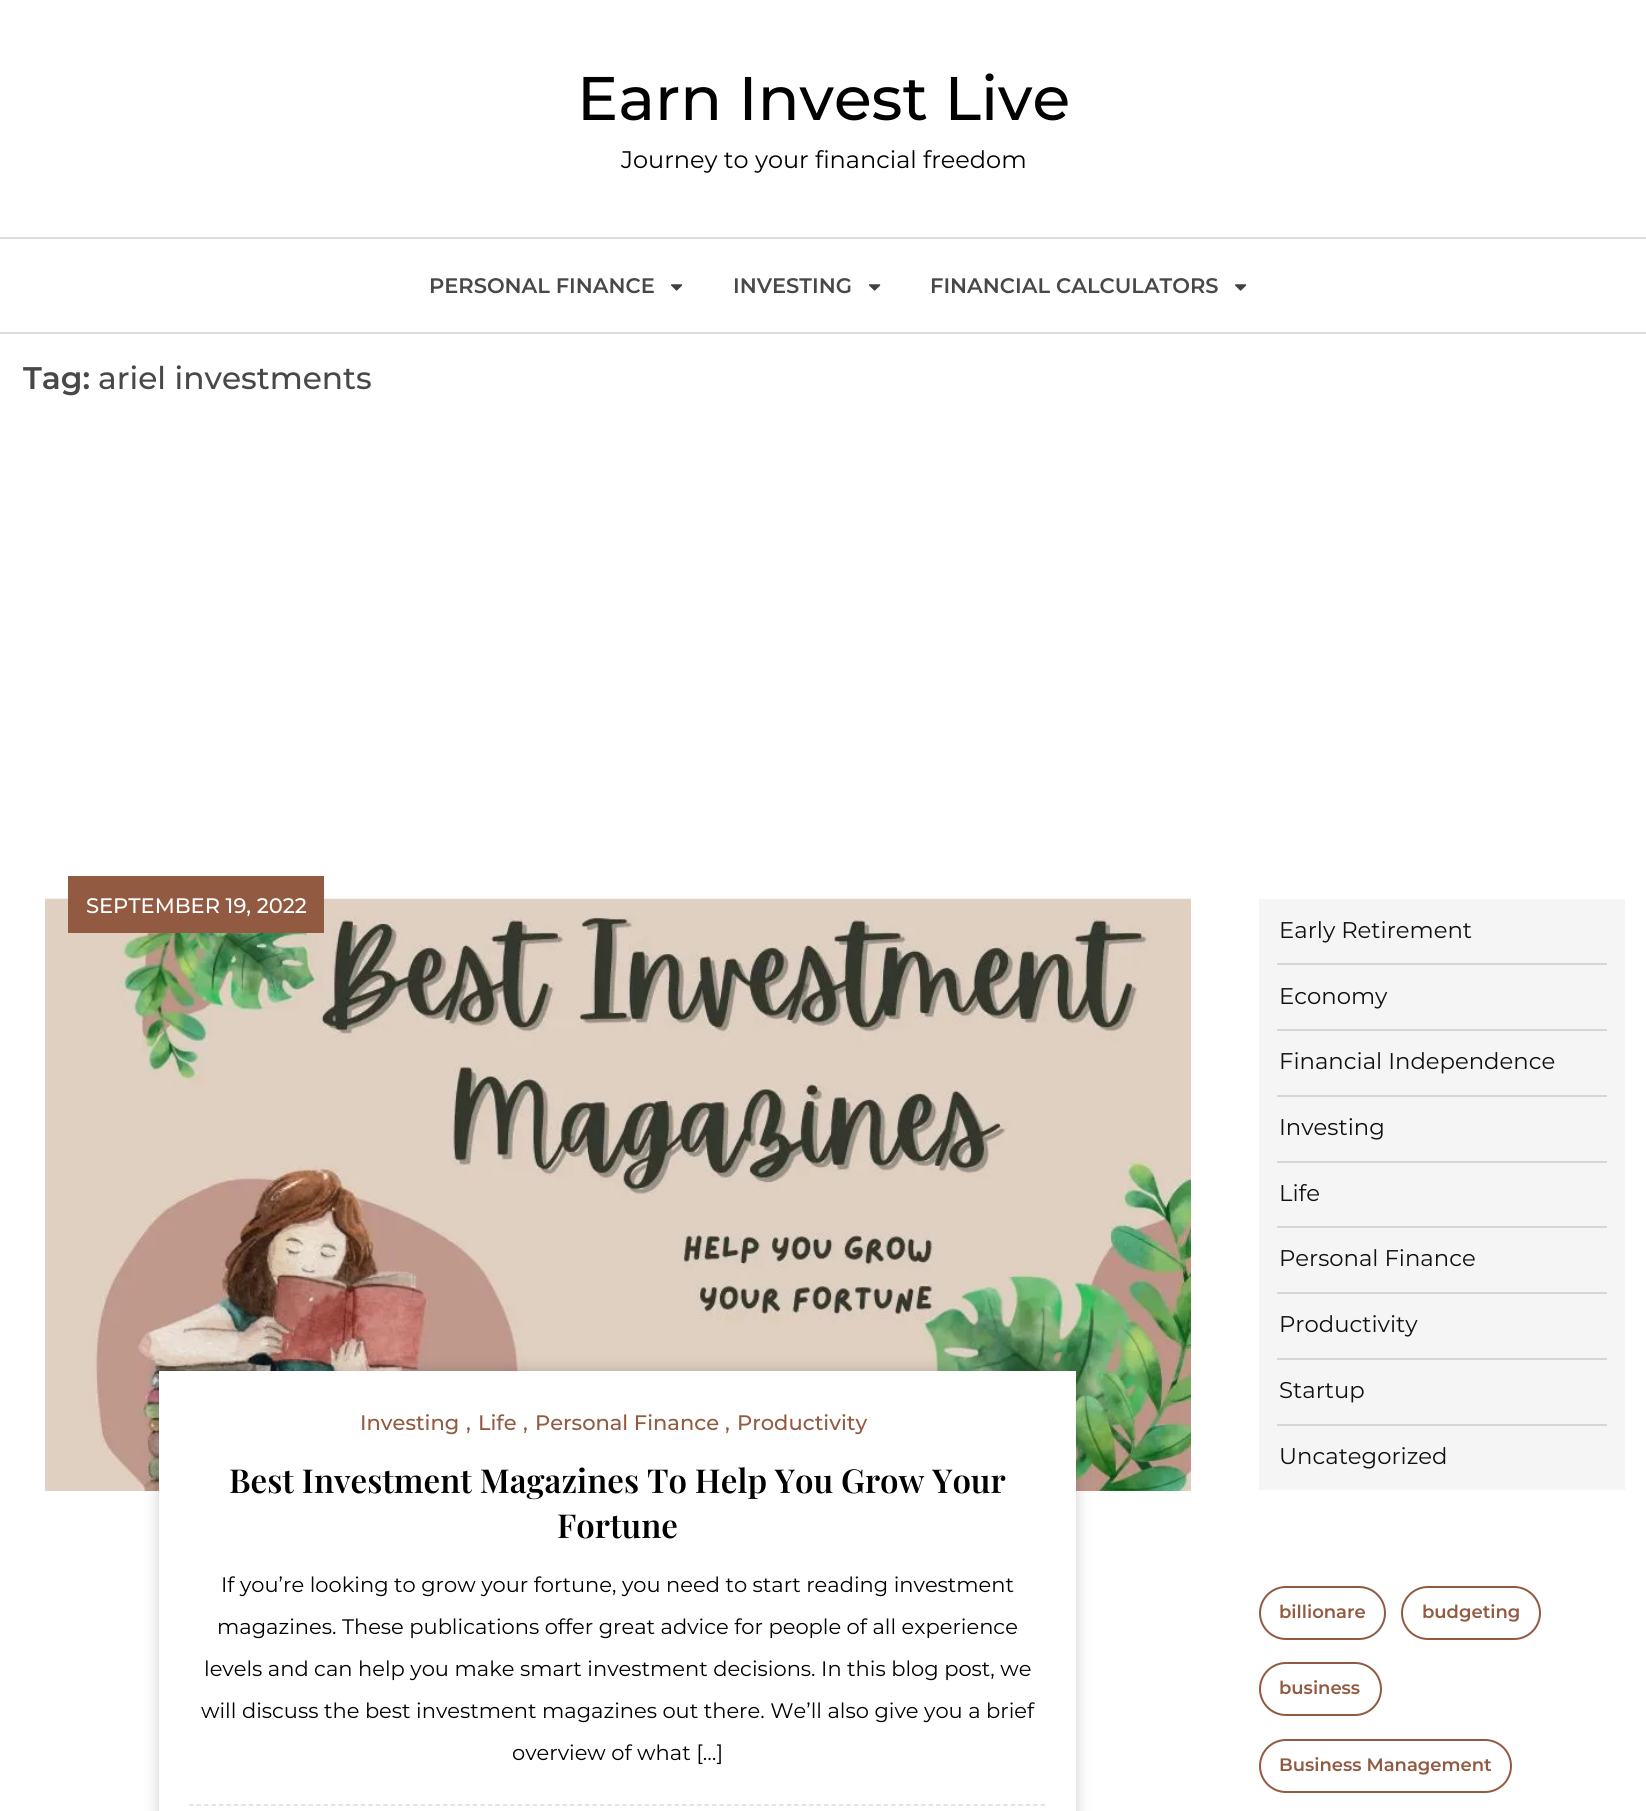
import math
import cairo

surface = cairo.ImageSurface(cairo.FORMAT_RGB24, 1646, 1811)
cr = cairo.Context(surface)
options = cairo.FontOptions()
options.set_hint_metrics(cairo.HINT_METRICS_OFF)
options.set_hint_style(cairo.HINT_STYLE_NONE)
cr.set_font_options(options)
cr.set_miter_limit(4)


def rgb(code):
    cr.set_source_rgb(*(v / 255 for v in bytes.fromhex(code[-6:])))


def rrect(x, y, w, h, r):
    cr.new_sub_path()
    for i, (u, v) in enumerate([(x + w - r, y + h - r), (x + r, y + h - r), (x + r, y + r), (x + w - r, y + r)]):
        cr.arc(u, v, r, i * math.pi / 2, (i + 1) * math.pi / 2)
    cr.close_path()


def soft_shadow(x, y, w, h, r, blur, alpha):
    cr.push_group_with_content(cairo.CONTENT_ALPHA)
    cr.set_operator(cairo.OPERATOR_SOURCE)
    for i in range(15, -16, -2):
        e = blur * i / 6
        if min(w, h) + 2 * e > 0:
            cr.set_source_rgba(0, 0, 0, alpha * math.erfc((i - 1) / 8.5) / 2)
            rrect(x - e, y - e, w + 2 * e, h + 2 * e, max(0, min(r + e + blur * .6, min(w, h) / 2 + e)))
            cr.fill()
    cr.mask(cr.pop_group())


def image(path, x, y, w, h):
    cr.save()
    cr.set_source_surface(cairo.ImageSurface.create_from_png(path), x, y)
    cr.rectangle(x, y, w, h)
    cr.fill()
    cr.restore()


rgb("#ffffff")
cr.paint()
rgb("#dddddd")
cr.rectangle(0, 237, 1646, 2)
cr.fill()
cr.rectangle(0, 332, 1646, 2)
cr.fill()
image("img/1.png", 671, 284, 12, 7)
image("img/1.png", 869, 284, 12, 7)
image("img/1.png", 1235, 284, 12, 7)
image("img/2.png", 45, 898, 1146, 593)
rgb("#925a41")
cr.rectangle(68, 876, 256, 57)
cr.fill()
rgb("#000000")
soft_shadow(159, 1371, 917, 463, 0, 7.5, 0.2)
rgb("#ffffff")
cr.rectangle(159, 1371, 917, 440)
cr.fill()
cr.new_path()
cr.move_to(189, 1805)
cr.line_to(1045.5, 1805)
rgb("#dddddd")
cr.set_line_width(1.5)
cr.set_dash([4.5, 2.97])
cr.stroke()
for x, y, w, h, color in [
    (1259, 899, 366, 591, "#f5f5f5"),
    (1277, 963, 330, 2, "#d6d6d7"),
    (1277, 1029, 330, 2, "#d6d6d7"),
    (1277, 1095, 330, 2, "#d6d6d7"),
    (1277, 1161, 330, 2, "#d6d6d7"),
    (1277, 1226, 330, 2, "#d6d6d7"),
    (1277, 1292, 330, 2, "#d6d6d7"),
    (1277, 1358, 330, 2, "#d6d6d7"),
    (1277, 1424, 330, 2, "#d6d6d7"),
]:
    rgb(color)
    cr.rectangle(x, y, w, h)
    cr.fill()
rrect(1260, 1587, 125, 52, 26)
rgb("#925a41")
cr.set_line_width(2)
cr.set_dash([])
cr.stroke()
rrect(1402, 1587, 138, 52, 26)
cr.stroke()
rrect(1260, 1663, 121, 52, 26)
cr.stroke()
rrect(1260, 1740, 251, 52, 26)
cr.stroke()
cr.select_font_face("Montserrat Medium")
cr.set_font_size(61.5)
rgb("#000000")
cr.move_to(577, 120)
cr.show_text("Earn Invest Live")
cr.select_font_face("Montserrat")
cr.set_font_size(24)
cr.move_to(621, 168)
cr.show_text("Journey to your financial freedom")
cr.select_font_face("Montserrat SemiBold")
cr.set_font_size(21)
rgb("#484848")
for x, y, s in [
    (429, 293, "PERSONAL FINANCE"),
    (733, 293, "INVESTING"),
    (930, 293, "FINANCIAL CALCULATORS"),
]:
    cr.move_to(x, y)
    cr.show_text(s)
cr.set_font_size(31.25)
cr.move_to(23, 389)
cr.show_text("Tag:")
cr.select_font_face("Montserrat Medium")
cr.move_to(98, 389)
cr.show_text("ariel investments")
cr.set_font_size(21)
rgb("#ffffff")
cr.move_to(86, 913)
cr.show_text("SEPTEMBER 19, 2022")
rgb("#925a41")
for x, y, s in [
    (360, 1430, "Investing"),
    (466, 1430, ","),
    (478, 1430, "Life"),
    (523, 1430, ","),
    (535, 1430, "Personal Finance"),
    (725, 1430, ","),
    (737, 1430, "Productivity"),
]:
    cr.move_to(x, y)
    cr.show_text(s)
cr.select_font_face("Playfair Display SemiBold")
cr.set_font_size(33)
rgb("#000000")
cr.move_to(229, 1493)
cr.show_text("Best Investment Magazines To Help You Grow Your")
cr.move_to(557, 1538)
cr.show_text("Fortune")
cr.select_font_face("Montserrat")
cr.set_font_size(21)
for x, y, s in [
    (221, 1592, "If you’re looking to grow your fortune, you need to start reading investment"),
    (217, 1634, "magazines. These publications offer great advice for people of all experience"),
    (204, 1676, "levels and can help you make smart investment decisions. In this blog post, we"),
    (201, 1718, "will discuss the best investment magazines out there. We’ll also give you a brief"),
    (512, 1760, "overview of what […]"),
]:
    cr.move_to(x, y)
    cr.show_text(s)
cr.set_font_size(22.75)
rgb("#111111")
for x, y, s in [
    (1279, 938, "Early Retirement"),
    (1279, 1004, "Economy"),
    (1279, 1069, "Financial Independence"),
    (1279, 1135, "Investing"),
    (1279, 1201, "Life"),
    (1279, 1266, "Personal Finance"),
    (1279, 1332, "Productivity"),
    (1279, 1398, "Startup"),
    (1279, 1464, "Uncategorized"),
]:
    cr.move_to(x, y)
    cr.show_text(s)
cr.select_font_face("Montserrat SemiBold")
cr.set_font_size(18)
rgb("#925a41")
for x, y, s in [
    (1279, 1618, "billionare"),
    (1422, 1618, "budgeting"),
    (1279, 1694, "business"),
    (1279, 1771, "Business Management"),
]:
    cr.move_to(x, y)
    cr.show_text(s)
surface.write_to_png("page.png")
